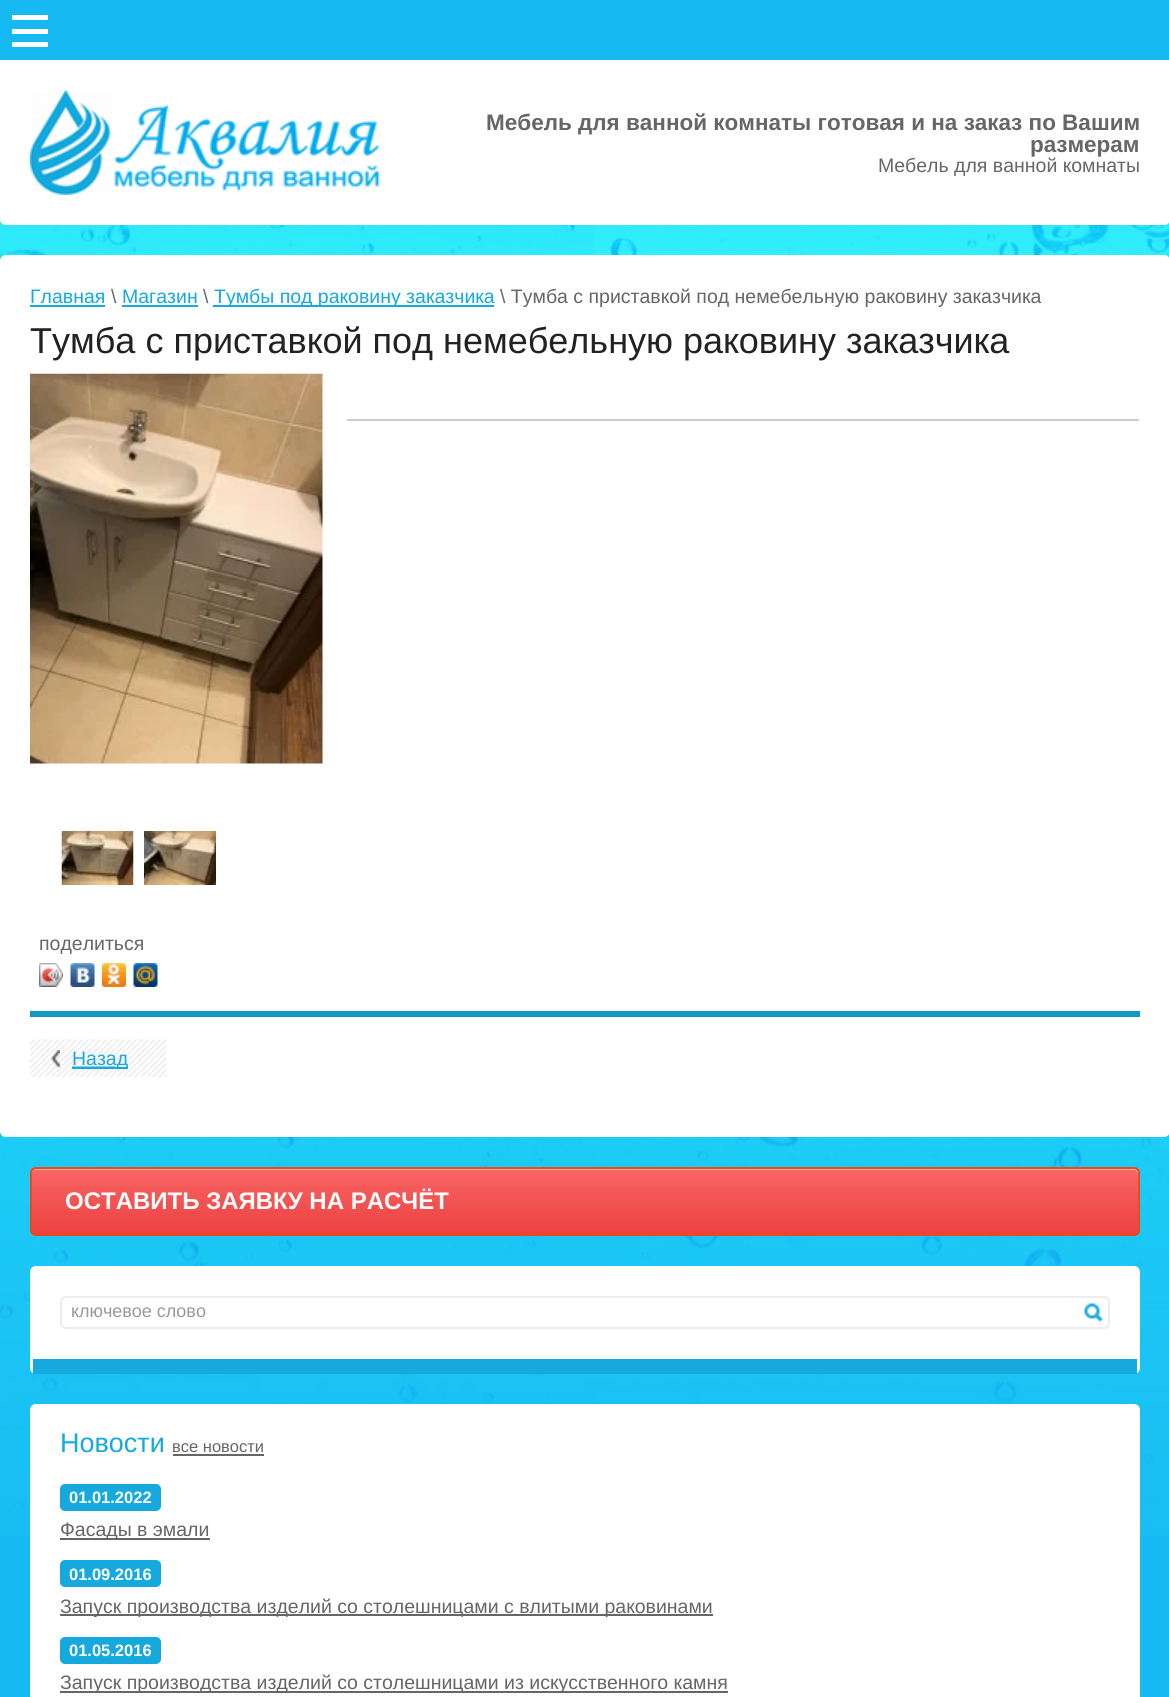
import math
import cairo

surface = cairo.ImageSurface(cairo.FORMAT_RGB24, 1169, 1697)
cr = cairo.Context(surface)
options = cairo.FontOptions()
options.set_hint_metrics(cairo.HINT_METRICS_OFF)
options.set_hint_style(cairo.HINT_STYLE_NONE)
cr.set_font_options(options)
cr.set_miter_limit(4)


def rgb(code):
    cr.set_source_rgb(*(v / 255 for v in bytes.fromhex(code[-6:])))


def rrect(x, y, w, h, r):
    cr.new_sub_path()
    for i, (u, v) in enumerate([(x + w - r, y + h - r), (x + r, y + h - r), (x + r, y + r), (x + w - r, y + r)]):
        cr.arc(u, v, r, i * math.pi / 2, (i + 1) * math.pi / 2)
    cr.close_path()


def image(path, x, y, w, h):
    cr.save()
    cr.set_source_surface(cairo.ImageSurface.create_from_png(path), x, y)
    cr.rectangle(x, y, w, h)
    cr.fill()
    cr.restore()


rgb("#17b9f2")
cr.paint()
image("img/1.png", 0, 219, 1169, 1317)
for x, y, w, h, color in [
    (12, 15, 36, 5, "#ffffff"),
    (12, 42, 36, 5, "#ffffff"),
    (12, 29, 36, 5, "#ffffff"),
]:
    rgb(color)
    cr.rectangle(x, y, w, h)
    cr.fill()
cr.new_path()
cr.move_to(0, 60)
cr.line_to(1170, 60)
cr.line_to(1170, 219)
cr.curve_to(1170, 222.5, 1167.5, 225, 1164, 225)
cr.line_to(6, 225)
cr.curve_to(2.5, 225, 0, 222.5, 0, 219)
cr.close_path()
cr.fill()
image("img/2.png", 30, 90, 350, 105)
rrect(0, 255, 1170, 882, 6)
cr.fill()
for x, y, w, h, color in [
    (30, 305, 75, 2, "#15a9dd"),
    (122, 305, 76, 2, "#15a9dd"),
    (213, 305, 281, 2, "#15a9dd"),
    (347, 419, 792, 2, "#cccccc"),
]:
    rgb(color)
    cr.rectangle(x, y, w, h)
    cr.fill()
image("img/3.png", 30, 373, 293, 391)
image("img/4.png", 61, 831, 73, 54)
image("img/5.png", 144, 831, 72, 54)
image("img/6.png", 39, 963, 24, 24)
image("img/7.png", 39, 963, 24, 24)
image("img/8.png", 70, 963, 25, 24)
image("img/9.png", 102, 963, 24, 24)
image("img/10.png", 133, 963, 25, 24)
rgb("#1398c6")
cr.rectangle(30, 1011, 1110, 6)
cr.fill()
image("img/11.png", 30, 1039, 137, 38)
image("img/12.png", 51, 1050, 64, 18)
rgb("#15a9dd")
cr.rectangle(72, 1067, 56, 2)
cr.fill()
cr.save()
rrect(30, 1167, 1110, 69, 6)
cr.clip()
gradient = cairo.LinearGradient(585, 1169, 585, 1235)
gradient.add_color_stop_rgba(0.01, 0.973, 0.396, 0.396, 1)
gradient.add_color_stop_rgba(1, 0.933, 0.251, 0.251, 1)
cr.set_source(gradient)
cr.rectangle(30, 1169, 1110, 66)
cr.fill()
cr.restore()
cr.set_source_rgba(1, 1, 1, 0.5)
cr.new_path()
cr.move_to(36, 1170)
cr.line_to(1134, 1170)
cr.curve_to(1136, 1170, 1138, 1172, 1138, 1174)
cr.line_to(1138, 1233)
cr.curve_to(1139, 1232, 1139, 1231, 1139, 1230)
cr.line_to(1139, 1174)
cr.curve_to(1139, 1171, 1137, 1169, 1134, 1169)
cr.line_to(37, 1169)
cr.curve_to(34, 1169, 32, 1171, 32, 1174)
cr.curve_to(32, 1172, 34, 1170, 36, 1170)
cr.close_path()
cr.fill()
rrect(31, 1168, 1108, 67, 5)
rgb("#ef4915")
cr.stroke()
rgb("#ffffff")
rrect(30, 1266, 1110, 108, 6)
cr.fill()
rgb("#15a9dd")
cr.rectangle(33, 1359, 1104, 15)
cr.fill()
rrect(61, 1297, 1048, 31, 5)
rgb("#ededed")
cr.stroke()
image("img/13.png", 1084, 1303, 19, 19)
rgb("#ffffff")
rrect(30, 1404, 1110, 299, 6)
cr.fill()
rgb("#666666")
cr.rectangle(173, 1454, 91, 2)
cr.fill()
rgb("#15a9dd")
rrect(60, 1484, 101, 27, 5)
cr.fill()
rgb("#666666")
cr.rectangle(60, 1538, 150, 2)
cr.fill()
rgb("#15a9dd")
rrect(60, 1560, 101, 27, 5)
cr.fill()
rgb("#666666")
cr.rectangle(60, 1614, 653, 2)
cr.fill()
rgb("#15a9dd")
rrect(60, 1637, 101, 27, 5)
cr.fill()
rgb("#666666")
cr.rectangle(60, 1691, 668, 2)
cr.fill()
cr.select_font_face("Liberation Sans", cairo.FONT_SLANT_NORMAL, cairo.FONT_WEIGHT_BOLD)
cr.set_font_size(22.5)
cr.move_to(486, 130)
cr.show_text("Мебель для ванной комнаты готовая и на заказ по Вашим")
cr.move_to(1030, 152)
cr.show_text("размерам")
cr.select_font_face("Liberation Sans")
cr.set_font_size(19.5)
cr.move_to(878, 172)
cr.show_text("Мебель для ванной комнаты")
rgb("#15a9dd")
cr.move_to(30, 303)
cr.show_text("Главная")
rgb("#666666")
cr.move_to(111, 303)
cr.show_text("\\")
rgb("#15a9dd")
cr.move_to(122, 303)
cr.show_text("Магазин")
rgb("#666666")
cr.move_to(203, 303)
cr.show_text("\\")
rgb("#15a9dd")
cr.move_to(214, 303)
cr.show_text("Тумбы под раковину заказчика")
rgb("#666666")
cr.move_to(500, 303)
cr.show_text("\\ Тумба с приставкой под немебельную раковину заказчика")
cr.set_font_size(36)
rgb("#222222")
cr.move_to(30, 353)
cr.show_text("Тумба с приставкой под немебельную раковину заказчика")
cr.set_font_size(19.5)
rgb("#666666")
cr.move_to(39, 950)
cr.show_text("поделиться")
rgb("#15a9dd")
cr.move_to(72, 1065)
cr.show_text("Назад")
cr.select_font_face("Liberation Sans", cairo.FONT_SLANT_NORMAL, cairo.FONT_WEIGHT_BOLD)
cr.set_font_size(24)
rgb("#ffffff")
cr.move_to(65, 1209)
cr.show_text("ОСТАВИТЬ ЗАЯВКУ НА РАСЧЁТ")
cr.select_font_face("Liberation Sans")
cr.set_font_size(18)
rgb("#999999")
cr.move_to(71, 1317)
cr.show_text("ключевое слово")
cr.set_font_size(27)
rgb("#15a9dd")
cr.move_to(60, 1452)
cr.show_text("Новости")
cr.set_font_size(16.5)
rgb("#666666")
cr.move_to(172, 1452)
cr.show_text("все новости")
cr.select_font_face("Liberation Sans", cairo.FONT_SLANT_NORMAL, cairo.FONT_WEIGHT_BOLD)
rgb("#ffffff")
cr.move_to(69, 1503)
cr.show_text("01.01.2022")
cr.select_font_face("Liberation Sans")
cr.set_font_size(19.5)
rgb("#666666")
cr.move_to(60, 1536)
cr.show_text("Фасады в эмали")
cr.select_font_face("Liberation Sans", cairo.FONT_SLANT_NORMAL, cairo.FONT_WEIGHT_BOLD)
cr.set_font_size(16.5)
rgb("#ffffff")
cr.move_to(69, 1580)
cr.show_text("01.09.2016")
cr.select_font_face("Liberation Sans")
cr.set_font_size(19.5)
rgb("#666666")
cr.move_to(60, 1613)
cr.show_text("Запуск производства изделий со столешницами с влитыми раковинами")
cr.select_font_face("Liberation Sans", cairo.FONT_SLANT_NORMAL, cairo.FONT_WEIGHT_BOLD)
cr.set_font_size(16.5)
rgb("#ffffff")
cr.move_to(69, 1656)
cr.show_text("01.05.2016")
cr.select_font_face("Liberation Sans")
cr.set_font_size(19.5)
rgb("#666666")
cr.move_to(60, 1689)
cr.show_text("Запуск производства изделий со столешницами из искусственного камня")
surface.write_to_png("page.png")
